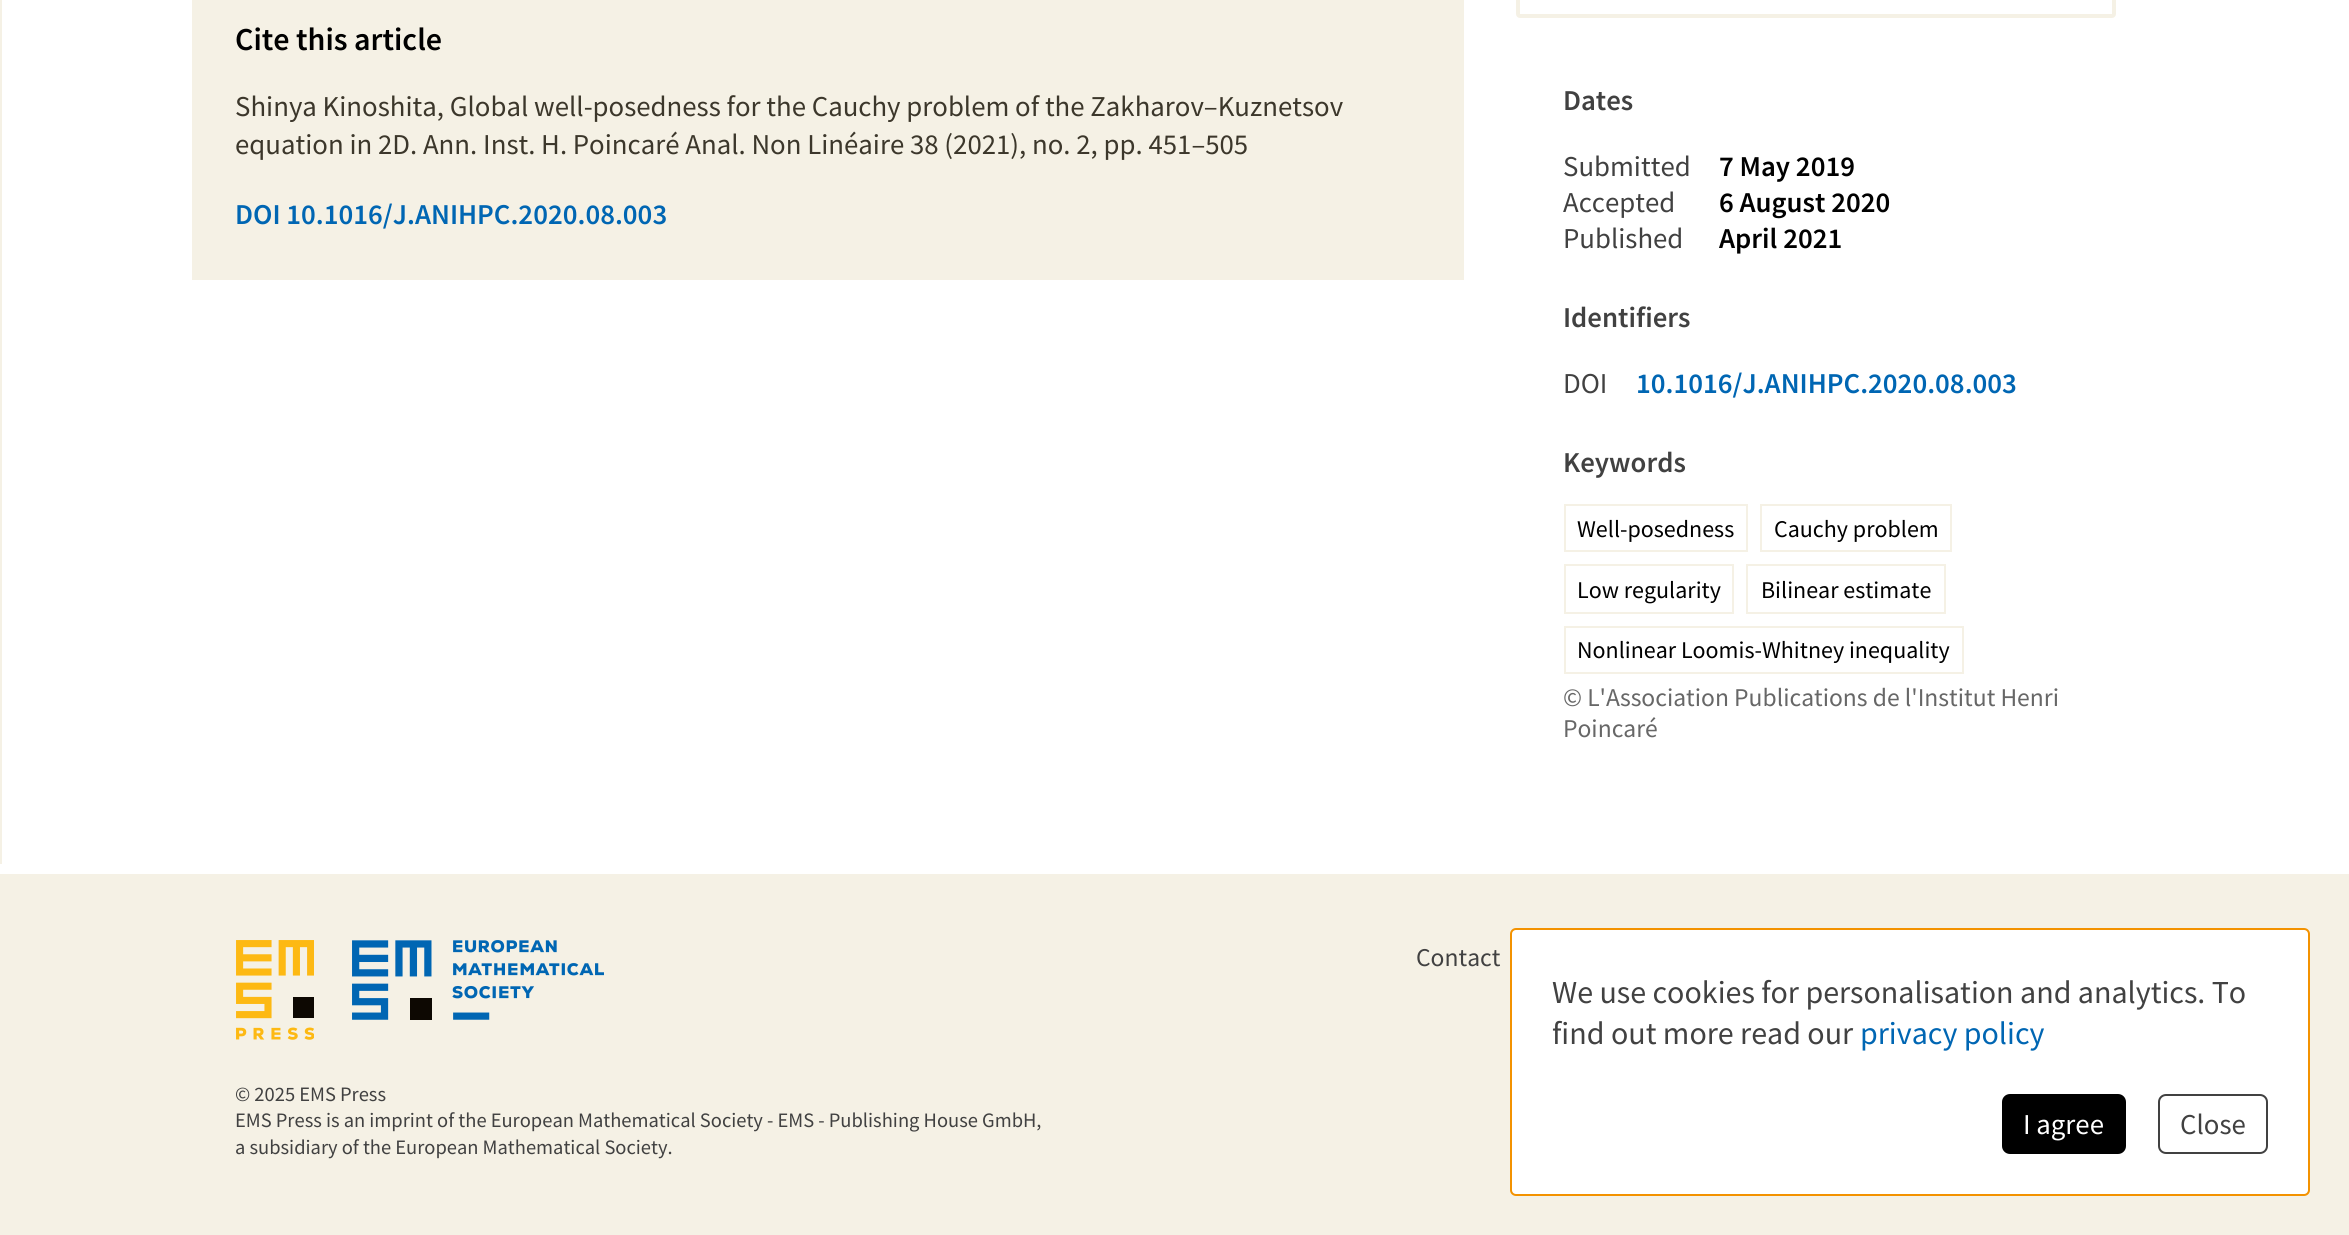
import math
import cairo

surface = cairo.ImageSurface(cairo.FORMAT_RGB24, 2349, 1235)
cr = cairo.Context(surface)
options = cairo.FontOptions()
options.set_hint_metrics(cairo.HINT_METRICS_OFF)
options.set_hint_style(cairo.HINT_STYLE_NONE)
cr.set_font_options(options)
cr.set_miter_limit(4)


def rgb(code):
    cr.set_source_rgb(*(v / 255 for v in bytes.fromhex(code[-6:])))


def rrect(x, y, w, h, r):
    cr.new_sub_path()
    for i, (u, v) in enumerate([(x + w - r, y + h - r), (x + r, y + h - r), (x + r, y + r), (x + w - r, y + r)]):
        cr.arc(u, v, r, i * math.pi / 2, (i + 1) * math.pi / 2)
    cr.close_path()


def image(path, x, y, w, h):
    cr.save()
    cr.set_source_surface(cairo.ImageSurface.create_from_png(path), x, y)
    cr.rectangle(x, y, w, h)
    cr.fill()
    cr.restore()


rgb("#f5f1e5")
cr.paint()
rgb("#ffffff")
cr.rectangle(2, 0, 2347, 864)
cr.fill()
rrect(1518, -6, 596, 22, 2)
rgb("#f5f1e5")
cr.set_line_width(4)
cr.stroke()
cr.rectangle(192, 0, 1272, 280)
cr.fill()
cr.rectangle(1565, 505, 182, 46)
cr.set_line_width(2)
cr.stroke()
cr.rectangle(1761, 505, 190, 46)
cr.stroke()
cr.rectangle(1565, 565, 168, 48)
cr.stroke()
cr.rectangle(1747, 565, 198, 48)
cr.stroke()
cr.rectangle(1565, 627, 398, 46)
cr.stroke()
rgb("#ffffff")
cr.rectangle(0, 864, 2349, 10)
cr.fill()
image("img/1.png", 236, 940, 78, 100)
image("img/2.png", 352, 940, 252, 80)
rrect(1511, 929, 798, 266, 5)
cr.fill_preserve()
rgb("#f39200")
cr.stroke()
rgb("#000000")
rrect(2003, 1095, 122, 58, 7)
cr.fill_preserve()
cr.stroke()
rrect(2159, 1095, 108, 58, 7)
rgb("#414141")
cr.stroke()
cr.select_font_face("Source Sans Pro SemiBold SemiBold")
cr.set_font_size(32)
rgb("#000000")
cr.move_to(235, 50)
cr.show_text("Cite this article")
cr.select_font_face("Source Sans Pro")
cr.set_font_size(28.8)
rgb("#3c372b")
cr.move_to(235, 116)
cr.show_text("Shinya Kinoshita, Global well-posedness for the Cauchy problem of the Zakharov–Kuznetsov")
cr.move_to(235, 154)
cr.show_text("equation in 2D. Ann. Inst. H. Poincaré Anal. Non Linéaire 38 (2021), no. 2, pp. 451–505")
cr.select_font_face("Source Sans Pro SemiBold SemiBold")
rgb("#0066b3")
cr.move_to(235, 224)
cr.show_text("DOI 10.1016/J.ANIHPC.2020.08.003")
rgb("#414141")
cr.move_to(1563, 110)
cr.show_text("Dates")
cr.select_font_face("Source Sans Pro")
cr.move_to(1563, 176)
cr.show_text("Submitted")
cr.select_font_face("Source Sans Pro SemiBold SemiBold")
rgb("#000000")
cr.move_to(1719, 176)
cr.show_text("7 May 2019")
cr.select_font_face("Source Sans Pro")
rgb("#414141")
cr.move_to(1563, 212)
cr.show_text("Accepted")
cr.select_font_face("Source Sans Pro SemiBold SemiBold")
rgb("#000000")
cr.move_to(1719, 212)
cr.show_text("6 August 2020")
cr.select_font_face("Source Sans Pro")
rgb("#414141")
cr.move_to(1563, 248)
cr.show_text("Published")
cr.select_font_face("Source Sans Pro SemiBold SemiBold")
rgb("#000000")
cr.move_to(1719, 248)
cr.show_text("April 2021")
rgb("#414141")
cr.move_to(1563, 327)
cr.show_text("Identifiers")
cr.select_font_face("Source Sans Pro")
cr.move_to(1563, 393)
cr.show_text("DOI")
cr.select_font_face("Source Sans Pro SemiBold SemiBold")
rgb("#0066b3")
cr.move_to(1636, 393)
cr.show_text("10.1016/J.ANIHPC.2020.08.003")
rgb("#414141")
cr.move_to(1563, 472)
cr.show_text("Keywords")
cr.select_font_face("Source Sans Pro")
cr.set_font_size(24)
rgb("#000000")
for x, y, s in [
    (1577, 537, "Well-posedness"),
    (1774, 537, "Cauchy problem"),
    (1577, 598, "Low regularity"),
    (1761, 598, "Bilinear estimate"),
    (1577, 658, "Nonlinear Loomis-Whitney inequality"),
]:
    cr.move_to(x, y)
    cr.show_text(s)
cr.set_font_size(25.6)
rgb("#676767")
cr.move_to(1563, 706)
cr.show_text("© L'Association Publications de l'Institut Henri")
cr.move_to(1563, 737)
cr.show_text("Poincaré")
rgb("#414141")
cr.move_to(1416, 966)
cr.show_text("Contact")
cr.set_font_size(20.5)
for x, y, s in [
    (235, 1101, "© 2025 EMS Press"),
    (235, 1127, "EMS Press is an imprint of the European Mathematical Society - EMS - Publishing House GmbH,"),
    (235, 1154, "a subsidiary of the European Mathematical Society."),
]:
    cr.move_to(x, y)
    cr.show_text(s)
cr.set_font_size(32)
cr.move_to(1552, 1003)
cr.show_text("We use cookies for personalisation and analytics. To")
cr.move_to(1552, 1044)
cr.show_text("find out more read our")
rgb("#0066b3")
cr.move_to(1860, 1044)
cr.show_text("privacy policy")
cr.set_font_size(28.8)
rgb("#ffffff")
cr.move_to(2023, 1134)
cr.show_text("I agree")
rgb("#414141")
cr.move_to(2180, 1134)
cr.show_text("Close")
surface.write_to_png("page.png")
